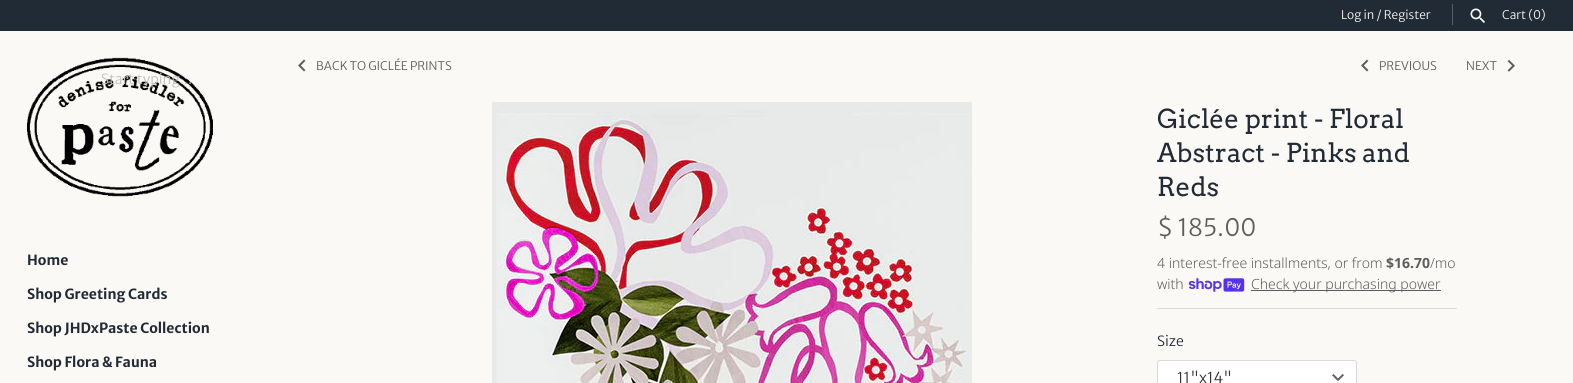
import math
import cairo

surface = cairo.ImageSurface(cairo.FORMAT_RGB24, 1573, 383)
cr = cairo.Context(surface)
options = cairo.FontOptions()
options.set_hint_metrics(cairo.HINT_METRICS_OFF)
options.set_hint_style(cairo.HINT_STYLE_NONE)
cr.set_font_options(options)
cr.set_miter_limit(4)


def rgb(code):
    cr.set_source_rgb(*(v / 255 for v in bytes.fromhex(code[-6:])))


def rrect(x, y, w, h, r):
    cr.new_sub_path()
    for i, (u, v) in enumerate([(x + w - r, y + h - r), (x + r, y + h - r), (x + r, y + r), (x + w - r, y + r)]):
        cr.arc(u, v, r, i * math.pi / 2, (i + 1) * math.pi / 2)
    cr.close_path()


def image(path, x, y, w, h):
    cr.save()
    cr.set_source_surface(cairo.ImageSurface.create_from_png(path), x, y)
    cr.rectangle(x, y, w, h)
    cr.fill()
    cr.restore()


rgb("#faf9f5")
cr.paint()
rgb("#212b36")
cr.rectangle(0, 0, 1573, 31)
cr.fill()
rgb("#575f66")
cr.rectangle(1452, 4, 1, 21)
cr.fill()
image("img/1.png", 1470, 8, 15, 15)
image("img/2.png", 27, 57, 186, 140)
image("img/3.png", 298, 59, 8, 13)
image("img/3.png", 1361, 59, 8, 13)
image("img/4.png", 1507, 59, 8, 13)
image("img/5.png", 492, 102, 480, 281)
image("img/6.png", 1188, 278, 57, 14)
rgb("#5d5d60")
cr.rectangle(1251, 290, 190, 1)
cr.fill()
rgb("#dbdad7")
cr.rectangle(1157, 308, 300, 1)
cr.fill()
rgb("#ffffff")
rrect(1157, 360, 200, 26, 3)
cr.fill()
image("img/7.png", 1332, 374, 12, 8)
rrect(1157.5, 360.5, 199, 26, 2.5)
cr.set_source_rgba(0, 0, 0, 0.15)
cr.set_line_width(1)
cr.stroke()
cr.select_font_face("Merriweather Sans Light")
cr.set_font_size(11.9)
rgb("#faf9f5")
cr.move_to(1341, 19)
cr.show_text("Log in / Register")
cr.move_to(1502, 19)
cr.show_text("Cart (0)")
cr.set_font_size(14)
rgb("#c1c0bd")
cr.move_to(101, 84)
cr.show_text("Start typing...")
cr.select_font_face("Merriweather Sans", cairo.FONT_SLANT_NORMAL, cairo.FONT_WEIGHT_BOLD)
rgb("#212b36")
for x, y, s in [
    (27, 265, "Home"),
    (27, 299, "Shop Greeting Cards"),
    (27, 333, "Shop JHDxPaste Collection"),
    (27, 367, "Shop Flora & Fauna"),
]:
    cr.move_to(x, y)
    cr.show_text(s)
cr.select_font_face("Merriweather Sans Light")
cr.set_font_size(11.9)
rgb("#5d5d60")
for x, y, s in [
    (316, 70, "BACK TO GICLÉE PRINTS"),
    (1379, 70, "PREVIOUS"),
    (1466, 70, "NEXT"),
]:
    cr.move_to(x, y)
    cr.show_text(s)
cr.select_font_face("Arvo")
cr.set_font_size(26)
rgb("#212b36")
for x, y, s in [
    (1157, 128, "Giclée print - Floral"),
    (1157, 162, "Abstract - Pinks and"),
    (1157, 196, "Reds"),
]:
    cr.move_to(x, y)
    cr.show_text(s)
cr.select_font_face("Merriweather Sans Light")
cr.set_font_size(24)
rgb("#5d5d60")
cr.move_to(1157, 236)
cr.show_text("$ 185.00")
cr.select_font_face("Noto Sans Light")
cr.set_font_size(14)
cr.move_to(1157, 268)
cr.show_text("4 interest-free installments, or from")
cr.select_font_face("Noto Sans", cairo.FONT_SLANT_NORMAL, cairo.FONT_WEIGHT_BOLD)
cr.move_to(1386, 268)
cr.show_text("$16.70")
cr.select_font_face("Noto Sans Light")
for x, y, s in [
    (1430, 268, "/mo"),
    (1157, 289, "with"),
    (1251, 289, "Check your purchasing power"),
]:
    cr.move_to(x, y)
    cr.show_text(s)
cr.select_font_face("Merriweather Sans Light")
rgb("#212b36")
cr.move_to(1157, 346)
cr.show_text("Size")
cr.set_font_size(15)
rgb("#333333")
cr.move_to(1177, 383)
cr.show_text("11\"x14\"")
surface.write_to_png("page.png")
